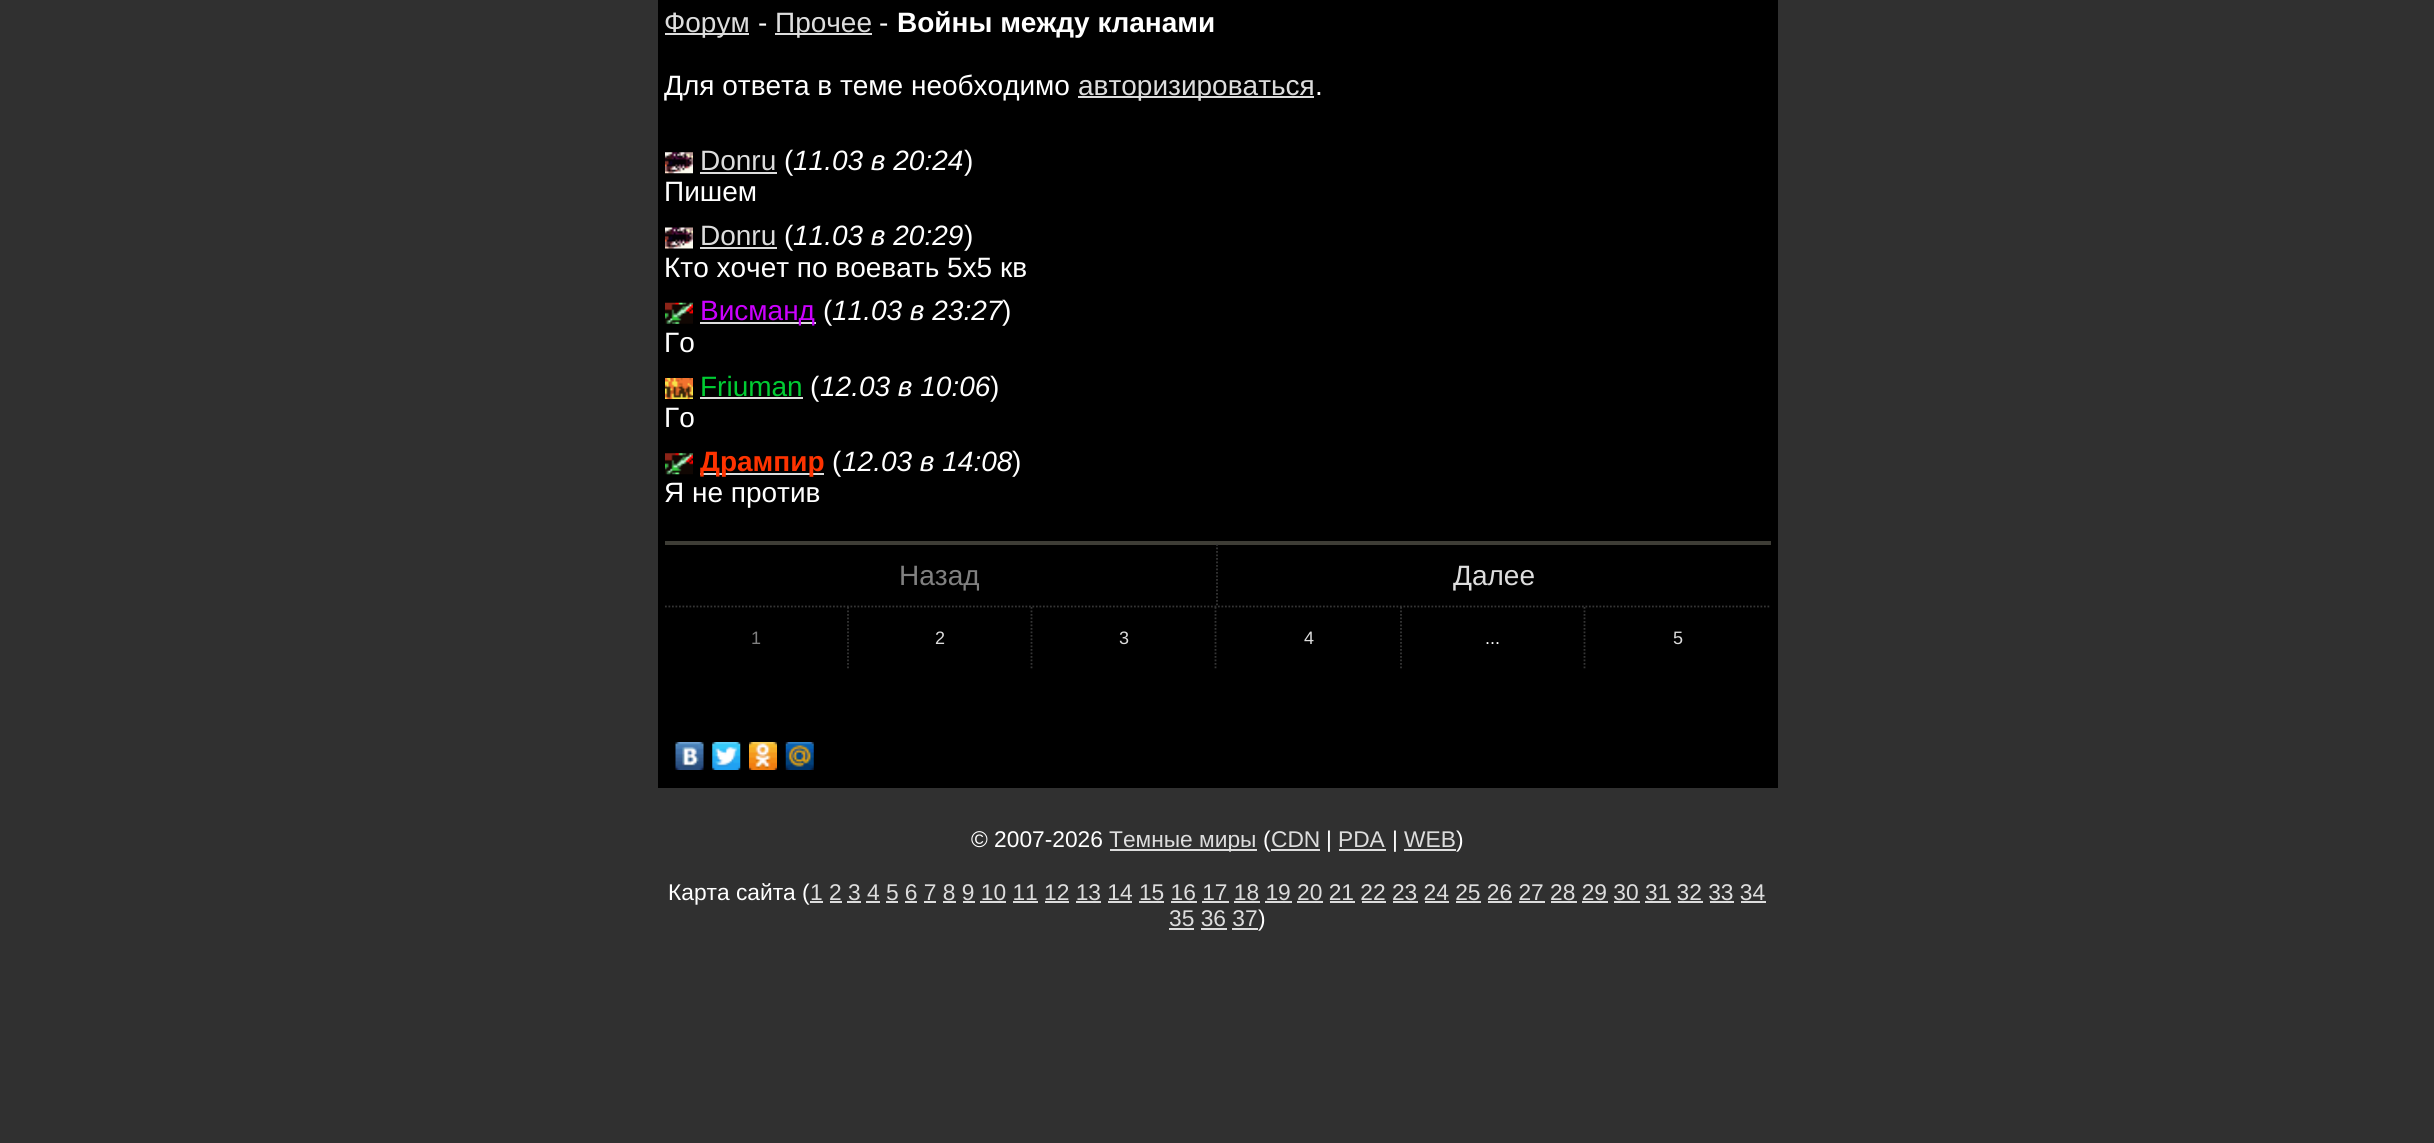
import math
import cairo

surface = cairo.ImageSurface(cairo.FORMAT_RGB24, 2434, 1143)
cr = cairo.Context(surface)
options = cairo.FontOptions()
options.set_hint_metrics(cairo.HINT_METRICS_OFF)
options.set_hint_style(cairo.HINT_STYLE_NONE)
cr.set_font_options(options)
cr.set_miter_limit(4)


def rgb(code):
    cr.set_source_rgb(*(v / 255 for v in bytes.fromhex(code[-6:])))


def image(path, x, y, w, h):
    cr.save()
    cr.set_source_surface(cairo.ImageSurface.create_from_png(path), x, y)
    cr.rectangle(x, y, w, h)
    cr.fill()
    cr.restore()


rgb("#303030")
cr.paint()
for x, y, w, h, color in [
    (658, 0, 1120, 788, "#000000"),
    (665, 33, 84, 2, "#dddddd"),
    (775, 33, 97, 2, "#dddddd"),
    (1078, 96, 236, 2, "#dddddd"),
]:
    rgb(color)
    cr.rectangle(x, y, w, h)
    cr.fill()
image("img/1.png", 665, 152, 28, 22)
cr.rectangle(700, 172, 77, 2)
cr.fill()
image("img/2.png", 665, 227, 28, 22)
cr.rectangle(700, 247, 77, 2)
cr.fill()
image("img/3.png", 665, 302, 28, 22)
cr.rectangle(700, 322, 116, 2)
cr.fill()
image("img/4.png", 665, 378, 28, 21)
cr.rectangle(700, 397, 103, 2)
cr.fill()
image("img/5.png", 665, 453, 28, 22)
cr.rectangle(700, 473, 124, 2)
cr.fill()
rgb("#3e3d36")
cr.rectangle(665, 541, 1106, 4)
cr.fill()
cr.new_path()
cr.move_to(1217, 544)
cr.line_to(1217, 607)
rgb("#353535")
cr.set_line_width(1.8)
cr.set_dash([1.75, 1.75])
cr.stroke()
cr.new_path()
cr.move_to(665, 606.5)
cr.line_to(1218, 606.5)
cr.stroke()
cr.new_path()
cr.move_to(1218, 606.5)
cr.line_to(1771, 606.5)
cr.stroke()
cr.new_path()
cr.move_to(848, 607)
cr.line_to(848, 668.5)
cr.stroke()
cr.new_path()
cr.move_to(1031.5, 607)
cr.line_to(1031.5, 668.5)
cr.stroke()
cr.new_path()
cr.move_to(1215.5, 607)
cr.line_to(1215.5, 668.5)
cr.stroke()
cr.new_path()
cr.move_to(1401, 607)
cr.line_to(1401, 668.5)
cr.stroke()
cr.new_path()
cr.move_to(1584.5, 607)
cr.line_to(1584.5, 668.5)
cr.stroke()
image("img/6.png", 675, 742, 29, 28)
image("img/7.png", 712, 742, 29, 28)
image("img/8.png", 749, 742, 28, 28)
image("img/9.png", 785, 742, 29, 28)
for x, y, w, h, color in [
    (1110, 849, 147, 2, "#dddddd"),
    (1271, 849, 49, 2, "#dddddd"),
    (1339, 849, 47, 2, "#dddddd"),
    (1404, 849, 52, 2, "#dddddd"),
    (810, 901, 13, 2, "#dddddd"),
    (830, 901, 12, 2, "#dddddd"),
    (847, 901, 14, 2, "#dddddd"),
    (866, 901, 14, 2, "#dddddd"),
    (886, 901, 12, 2, "#dddddd"),
    (905, 901, 12, 2, "#dddddd"),
    (924, 901, 12, 2, "#dddddd"),
    (943, 901, 13, 2, "#dddddd"),
    (963, 901, 12, 2, "#dddddd"),
    (980, 901, 26, 2, "#dddddd"),
    (1013, 901, 25, 2, "#dddddd"),
    (1045, 901, 24, 2, "#dddddd"),
    (1076, 901, 25, 2, "#dddddd"),
    (1108, 901, 24, 2, "#dddddd"),
    (1139, 901, 25, 2, "#dddddd"),
    (1171, 901, 26, 2, "#dddddd"),
    (1202, 901, 27, 2, "#dddddd"),
    (1234, 901, 26, 2, "#dddddd"),
    (1265, 901, 27, 2, "#dddddd"),
    (1297, 901, 26, 2, "#dddddd"),
    (1330, 901, 25, 2, "#dddddd"),
    (1362, 901, 24, 2, "#dddddd"),
    (1393, 901, 25, 2, "#dddddd"),
    (1425, 901, 24, 2, "#dddddd"),
    (1456, 901, 25, 2, "#dddddd"),
    (1488, 901, 24, 2, "#dddddd"),
    (1519, 901, 26, 2, "#dddddd"),
    (1551, 901, 26, 2, "#dddddd"),
    (1582, 901, 26, 2, "#dddddd"),
    (1614, 901, 26, 2, "#dddddd"),
    (1645, 901, 26, 2, "#dddddd"),
    (1678, 901, 25, 2, "#dddddd"),
    (1710, 901, 24, 2, "#dddddd"),
    (1741, 901, 25, 2, "#dddddd"),
    (1169, 928, 25, 2, "#dddddd"),
    (1201, 928, 26, 2, "#dddddd"),
    (1232, 928, 26, 2, "#dddddd"),
]:
    rgb(color)
    cr.rectangle(x, y, w, h)
    cr.fill()
cr.select_font_face("Liberation Sans")
cr.set_font_size(28)
cr.move_to(664, 32)
cr.show_text("Форум")
rgb("#ffffff")
cr.move_to(758, 32)
cr.show_text("-")
rgb("#dddddd")
cr.move_to(775, 32)
cr.show_text("Прочее")
rgb("#ffffff")
cr.move_to(879, 32)
cr.show_text("-")
cr.select_font_face("Liberation Sans", cairo.FONT_SLANT_NORMAL, cairo.FONT_WEIGHT_BOLD)
cr.move_to(897, 32)
cr.show_text("Войны между кланами")
cr.select_font_face("Liberation Sans")
cr.move_to(664, 95)
cr.show_text("Для ответа в теме необходимо")
rgb("#dddddd")
cr.move_to(1078, 95)
cr.show_text("авторизироваться")
rgb("#ffffff")
cr.move_to(1315, 95)
cr.show_text(".")
rgb("#dddddd")
cr.move_to(700, 170)
cr.show_text("Donru")
rgb("#ffffff")
cr.move_to(784, 170)
cr.show_text("(")
cr.select_font_face("Liberation Sans", cairo.FONT_SLANT_ITALIC)
cr.move_to(793, 170)
cr.show_text("11.03 в 20:24")
cr.select_font_face("Liberation Sans")
cr.move_to(964, 170)
cr.show_text(")")
cr.move_to(664, 201)
cr.show_text("Пишем")
rgb("#dddddd")
cr.move_to(700, 245)
cr.show_text("Donru")
rgb("#ffffff")
cr.move_to(784, 245)
cr.show_text("(")
cr.select_font_face("Liberation Sans", cairo.FONT_SLANT_ITALIC)
cr.move_to(793, 245)
cr.show_text("11.03 в 20:29")
cr.select_font_face("Liberation Sans")
cr.move_to(964, 245)
cr.show_text(")")
cr.move_to(664, 277)
cr.show_text("Кто хочет по воевать 5х5 кв")
rgb("#cc00ff")
cr.move_to(700, 320)
cr.show_text("Висманд")
rgb("#ffffff")
cr.move_to(823, 320)
cr.show_text("(")
cr.select_font_face("Liberation Sans", cairo.FONT_SLANT_ITALIC)
cr.move_to(832, 320)
cr.show_text("11.03 в 23:27")
cr.select_font_face("Liberation Sans")
cr.move_to(1002, 320)
cr.show_text(")")
cr.move_to(664, 352)
cr.show_text("Го")
rgb("#00cc33")
cr.move_to(700, 396)
cr.show_text("Friuman")
rgb("#ffffff")
cr.move_to(810, 396)
cr.show_text("(")
cr.select_font_face("Liberation Sans", cairo.FONT_SLANT_ITALIC)
cr.move_to(820, 396)
cr.show_text("12.03 в 10:06")
cr.select_font_face("Liberation Sans")
cr.move_to(990, 396)
cr.show_text(")")
cr.move_to(664, 427)
cr.show_text("Го")
cr.select_font_face("Liberation Sans", cairo.FONT_SLANT_NORMAL, cairo.FONT_WEIGHT_BOLD)
rgb("#ff3300")
cr.move_to(700, 471)
cr.show_text("Дрампир")
cr.select_font_face("Liberation Sans")
rgb("#ffffff")
cr.move_to(832, 471)
cr.show_text("(")
cr.select_font_face("Liberation Sans", cairo.FONT_SLANT_ITALIC)
cr.move_to(842, 471)
cr.show_text("12.03 в 14:08")
cr.select_font_face("Liberation Sans")
cr.move_to(1012, 471)
cr.show_text(")")
cr.move_to(664, 502)
cr.show_text("Я не против")
rgb("#808080")
cr.move_to(899, 585)
cr.show_text("Назад")
rgb("#dddddd")
cr.move_to(1453, 585)
cr.show_text("Далее")
cr.set_font_size(18)
rgb("#808080")
cr.move_to(751, 644)
cr.show_text("1")
rgb("#dddddd")
for x, y, s in [
    (935, 644, "2"),
    (1119, 644, "3"),
    (1304, 644, "4"),
]:
    cr.move_to(x, y)
    cr.show_text(s)
rgb("#ffffff")
cr.move_to(1485, 644)
cr.show_text("...")
rgb("#dddddd")
cr.move_to(1673, 644)
cr.show_text("5")
cr.set_font_size(22.75)
rgb("#ffffff")
cr.move_to(971, 847)
cr.show_text("© 2007-2026")
rgb("#dddddd")
cr.move_to(1109, 847)
cr.show_text("Темные миры")
rgb("#ffffff")
cr.move_to(1263, 847)
cr.show_text("(")
rgb("#dddddd")
cr.move_to(1271, 847)
cr.show_text("CDN")
rgb("#ffffff")
cr.move_to(1326, 847)
cr.show_text("|")
rgb("#dddddd")
cr.move_to(1338, 847)
cr.show_text("PDA")
rgb("#ffffff")
cr.move_to(1392, 847)
cr.show_text("|")
rgb("#dddddd")
cr.move_to(1404, 847)
cr.show_text("WEB")
rgb("#ffffff")
cr.move_to(1456, 847)
cr.show_text(")")
cr.move_to(668, 900)
cr.show_text("Карта сайта (")
rgb("#dddddd")
cr.move_to(810, 900)
cr.show_text("1 2 3 4 5 6 7 8 9 10 11 12 13 14 15 16 17 18 19 20 21 22 23 24 25 26 27 28 29 30 31 32 33 34")
cr.move_to(1169, 926)
cr.show_text("35 36 37")
rgb("#ffffff")
cr.move_to(1258, 926)
cr.show_text(")")
surface.write_to_png("page.png")
